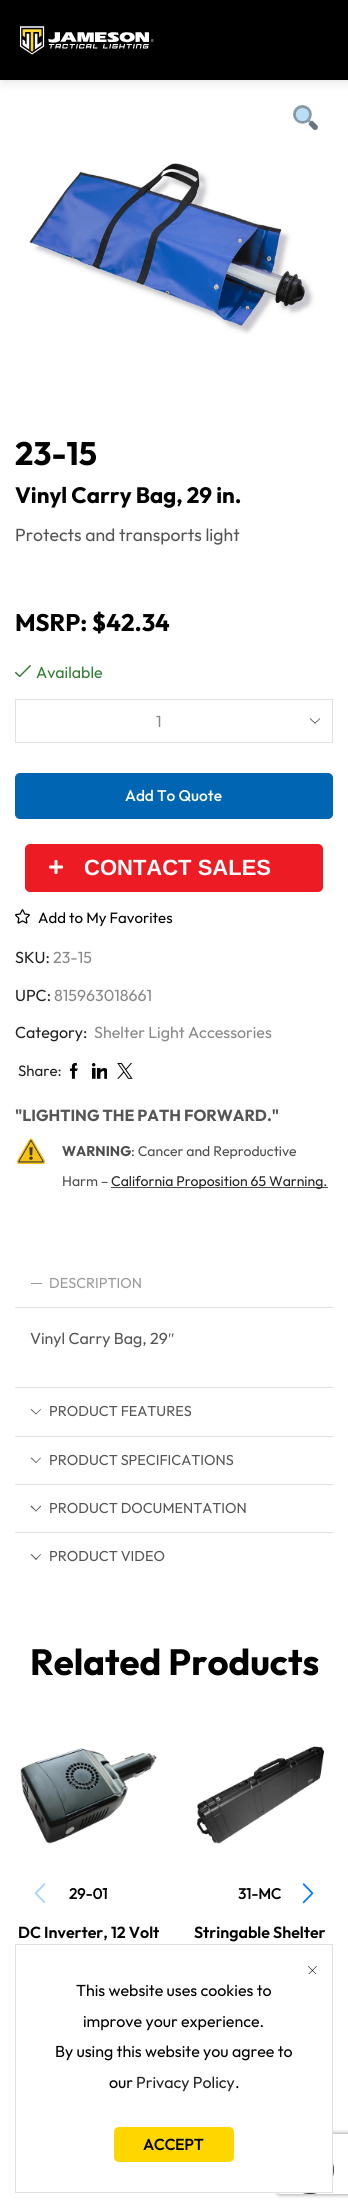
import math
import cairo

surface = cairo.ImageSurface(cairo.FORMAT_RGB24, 348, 2208)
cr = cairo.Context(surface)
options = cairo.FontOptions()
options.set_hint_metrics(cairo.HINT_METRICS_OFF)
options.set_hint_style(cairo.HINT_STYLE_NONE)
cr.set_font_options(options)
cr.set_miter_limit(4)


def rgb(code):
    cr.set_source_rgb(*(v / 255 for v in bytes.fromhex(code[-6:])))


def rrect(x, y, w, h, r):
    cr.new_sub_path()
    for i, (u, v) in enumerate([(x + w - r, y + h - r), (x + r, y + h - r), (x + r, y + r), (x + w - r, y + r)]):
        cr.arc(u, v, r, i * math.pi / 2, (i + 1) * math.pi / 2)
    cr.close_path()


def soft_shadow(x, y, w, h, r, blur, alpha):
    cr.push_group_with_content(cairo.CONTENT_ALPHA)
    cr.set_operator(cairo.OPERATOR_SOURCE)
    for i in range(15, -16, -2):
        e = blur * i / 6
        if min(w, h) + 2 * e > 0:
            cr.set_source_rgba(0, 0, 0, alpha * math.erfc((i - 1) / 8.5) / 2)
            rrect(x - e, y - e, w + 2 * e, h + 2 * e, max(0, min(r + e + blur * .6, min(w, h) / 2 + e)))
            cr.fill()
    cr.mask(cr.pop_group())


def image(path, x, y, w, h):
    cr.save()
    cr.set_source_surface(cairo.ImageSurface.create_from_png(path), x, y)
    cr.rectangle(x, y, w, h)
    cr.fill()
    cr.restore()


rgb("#ffffff")
cr.paint()
rgb("#000000")
soft_shadow(2, 0, 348, 80, 0, 6, 0.15)
rgb("#000000")
cr.rectangle(0, 0, 348, 80)
cr.fill()
image("img/1.png", 20, 26, 134, 29)
image("img/2.png", 293, 105, 25, 25)
image("img/3.png", 29, 163, 286, 172)
image("img/4.png", 15, 665, 16, 13)
image("img/5.png", 310, 718, 10, 6)
cr.rectangle(15.5, 699.5, 317, 43)
rgb("#e1e1e1")
cr.set_line_width(1)
cr.stroke()
rgb("#0066b4")
rrect(15.5, 773.5, 317, 45, 4.5)
cr.fill_preserve()
cr.stroke()
rgb("#ed1c24")
rrect(25, 844, 298, 48, 5)
cr.fill()
image("img/6.png", 49, 860, 14, 14)
image("img/7.png", 15, 909, 15, 15)
image("img/8.png", 69, 1063, 9, 16)
image("img/9.png", 92, 1063, 15, 16)
image("img/10.png", 117, 1063, 16, 16)
image("img/11.png", 16, 1138, 30, 27)
for x, y, w, h, color in [
    (111, 1187, 217, 1, "#4d4d4d"),
    (31, 1283, 11, 1, "#999999"),
    (15, 1307, 318, 1, "#e1e1e1"),
    (15, 1387, 318, 1, "#e1e1e1"),
]:
    rgb(color)
    cr.rectangle(x, y, w, h)
    cr.fill()
rgb("#555555")
cr.new_path()
cr.move_to(31.5, 1409)
cr.line_to(36.5, 1414)
cr.line_to(36, 1414.5)
cr.line_to(30.5, 1409.5)
cr.close_path()
cr.fill()
cr.new_path()
cr.move_to(35.5, 1414)
cr.line_to(40.5, 1409)
cr.line_to(41, 1409.5)
cr.line_to(36, 1414.5)
cr.close_path()
cr.fill()
rgb("#e1e1e1")
cr.rectangle(15, 1436, 318, 1)
cr.fill()
rgb("#555555")
cr.new_path()
cr.move_to(31.5, 1457.5)
cr.line_to(36.5, 1462.5)
cr.line_to(36, 1463)
cr.line_to(30.5, 1458)
cr.close_path()
cr.fill()
cr.new_path()
cr.move_to(35.5, 1462.5)
cr.line_to(40.5, 1457.5)
cr.line_to(41, 1458)
cr.line_to(36, 1463)
cr.close_path()
cr.fill()
rgb("#e1e1e1")
cr.rectangle(15, 1484, 318, 1)
cr.fill()
rgb("#555555")
cr.new_path()
cr.move_to(31.5, 1505.5)
cr.line_to(36.5, 1511)
cr.line_to(36, 1511.5)
cr.line_to(30.5, 1506.5)
cr.close_path()
cr.fill()
cr.new_path()
cr.move_to(35.5, 1511)
cr.line_to(40.5, 1505.5)
cr.line_to(41, 1506.5)
cr.line_to(36, 1511.5)
cr.close_path()
cr.fill()
rgb("#e1e1e1")
cr.rectangle(15, 1532, 318, 1)
cr.fill()
rgb("#555555")
cr.new_path()
cr.move_to(31.5, 1554)
cr.line_to(36.5, 1559)
cr.line_to(36, 1560)
cr.line_to(30.5, 1554.5)
cr.close_path()
cr.fill()
cr.new_path()
cr.move_to(35.5, 1559)
cr.line_to(40.5, 1554)
cr.line_to(41, 1554.5)
cr.line_to(36, 1560)
cr.close_path()
cr.fill()
image("img/12.png", 34, 1883, 12, 21)
image("img/13.png", 302, 1883, 12, 21)
image("img/14.png", 20, 1748, 137, 96)
image("img/15.png", 197, 1746, 128, 98)
cr.save()
cr.set_fill_rule(cairo.FILL_RULE_EVEN_ODD)
cr.new_path()
cr.move_to(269, 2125)
cr.line_to(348, 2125)
cr.line_to(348, 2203)
cr.line_to(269, 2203)
cr.close_path()
cr.move_to(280, 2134)
cr.line_to(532, 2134)
cr.curve_to(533, 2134, 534, 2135, 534, 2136)
cr.line_to(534, 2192)
cr.curve_to(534, 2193, 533, 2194, 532, 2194)
cr.line_to(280, 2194)
cr.curve_to(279, 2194, 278, 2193, 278, 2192)
cr.line_to(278, 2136)
cr.curve_to(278, 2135, 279, 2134, 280, 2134)
cr.close_path()
cr.clip()
rgb("#808080")
soft_shadow(278, 2134, 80, 60, 2, 2.5, 1)
cr.restore()
cr.new_path()
cr.move_to(310, 2147)
cr.curve_to(340.5, 2147, 340.5, 2193, 310, 2193)
cr.curve_to(279.5, 2193, 279.5, 2147, 310, 2147)
rgb("#222222")
cr.set_line_width(1.9)
cr.stroke()
rgb("#ffffff")
cr.rectangle(273, 2129, 59, 63)
cr.fill()
cr.rectangle(15.5, 1944.5, 317, 248)
rgb("#e1e1e1")
cr.set_line_width(1)
cr.stroke()
image("img/16.png", 308, 1966, 9, 8)
rgb("#ffd600")
rrect(114, 2127, 120, 35, 5)
cr.fill()
cr.select_font_face("Outfit", cairo.FONT_SLANT_NORMAL, cairo.FONT_WEIGHT_BOLD)
cr.set_font_size(32.5)
rgb("#000000")
cr.move_to(15, 465)
cr.show_text("23-15")
cr.set_font_size(22.25)
cr.move_to(15, 503)
cr.show_text("Vinyl Carry Bag, 29 in.")
cr.select_font_face("Outfit")
cr.set_font_size(17.6)
rgb("#555555")
cr.move_to(15, 541)
cr.show_text("Protects and transports light")
cr.select_font_face("Outfit", cairo.FONT_SLANT_NORMAL, cairo.FONT_WEIGHT_BOLD)
cr.set_font_size(24)
rgb("#000000")
cr.move_to(15, 631)
cr.show_text("MSRP: $42.34")
cr.select_font_face("Outfit")
cr.set_font_size(16)
rgb("#2e7d32")
cr.move_to(36, 678)
cr.show_text("Available")
rgb("#888888")
cr.move_to(156, 727)
cr.show_text("1")
cr.select_font_face("Outfit Medium")
cr.set_font_size(15.5)
rgb("#ffffff")
cr.move_to(125, 801)
cr.show_text("Add To Quote")
cr.select_font_face("Liberation Sans", cairo.FONT_SLANT_NORMAL, cairo.FONT_WEIGHT_BOLD)
cr.set_font_size(22)
cr.move_to(84, 875)
cr.show_text("CONTACT SALES")
cr.select_font_face("Outfit")
cr.set_font_size(15)
rgb("#000000")
cr.move_to(38, 923)
cr.show_text("Add to My Favorites")
cr.set_font_size(16)
rgb("#222222")
cr.move_to(15, 963)
cr.show_text("SKU:")
rgb("#888888")
cr.move_to(53, 963)
cr.show_text("23-15")
rgb("#222222")
cr.move_to(15, 1001)
cr.show_text("UPC:")
rgb("#888888")
cr.move_to(54, 1001)
cr.show_text("815963018661")
rgb("#222222")
cr.move_to(15, 1038)
cr.show_text("Category:")
rgb("#888888")
cr.move_to(94, 1038)
cr.show_text("Shelter Light Accessories")
cr.set_font_size(15)
rgb("#222222")
cr.move_to(18, 1076)
cr.show_text("Share:")
cr.select_font_face("Outfit", cairo.FONT_SLANT_NORMAL, cairo.FONT_WEIGHT_BOLD)
cr.set_font_size(16)
rgb("#555555")
cr.move_to(15, 1121)
cr.show_text("\"LIGHTING THE PATH FORWARD.\"")
cr.set_font_size(14)
rgb("#4d4d4d")
cr.move_to(62, 1156)
cr.show_text("WARNING")
cr.select_font_face("Outfit")
cr.move_to(131, 1156)
cr.show_text(": Cancer and Reproductive")
cr.move_to(62, 1186)
cr.show_text("Harm –")
rgb("#222222")
cr.move_to(111, 1186)
cr.show_text("California Proposition 65 Warning.")
cr.set_font_size(14.4)
rgb("#999999")
cr.move_to(49, 1288)
cr.show_text("DESCRIPTION")
cr.set_font_size(16)
rgb("#555555")
cr.move_to(30, 1344)
cr.show_text("Vinyl Carry Bag, 29")
cr.select_font_face("Liberation Serif")
cr.move_to(168, 1344)
cr.show_text("″")
cr.select_font_face("Outfit")
cr.set_font_size(14.4)
for x, y, s in [
    (49, 1416, "PRODUCT FEATURES"),
    (49, 1465, "PRODUCT SPECIFICATIONS"),
    (49, 1513, "PRODUCT DOCUMENTATION"),
    (49, 1561, "PRODUCT VIDEO"),
]:
    cr.move_to(x, y)
    cr.show_text(s)
cr.select_font_face("Outfit", cairo.FONT_SLANT_NORMAL, cairo.FONT_WEIGHT_BOLD)
cr.set_font_size(36.5)
rgb("#000000")
cr.move_to(30, 1675)
cr.show_text("Related Products")
cr.select_font_face("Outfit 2", cairo.FONT_SLANT_NORMAL, cairo.FONT_WEIGHT_BOLD)
cr.set_font_size(15)
cr.move_to(69, 1899)
cr.show_text("29-01")
cr.select_font_face("Outfit SemiBold")
cr.set_font_size(16)
cr.move_to(18, 1938)
cr.show_text("DC Inverter, 12 Volt")
cr.select_font_face("Outfit 2", cairo.FONT_SLANT_NORMAL, cairo.FONT_WEIGHT_BOLD)
cr.set_font_size(15)
cr.move_to(238, 1899)
cr.show_text("31-MC")
cr.select_font_face("Outfit SemiBold")
cr.set_font_size(16)
cr.move_to(194, 1938)
cr.show_text("Stringable Shelter")
cr.select_font_face("Outfit")
for x, y, s in [
    (76, 1996, "This website uses cookies to"),
    (83, 2027, "improve your experience."),
    (55, 2057, "By using this website you agree to"),
    (109, 2088, "our"),
]:
    cr.move_to(x, y)
    cr.show_text(s)
rgb("#222222")
cr.move_to(136, 2088)
cr.show_text("Privacy Policy")
rgb("#000000")
cr.move_to(235, 2088)
cr.show_text(".")
cr.select_font_face("Outfit 2", cairo.FONT_SLANT_NORMAL, cairo.FONT_WEIGHT_BOLD)
cr.set_font_size(15.5)
cr.move_to(143, 2150)
cr.show_text("ACCEPT")
surface.write_to_png("page.png")
